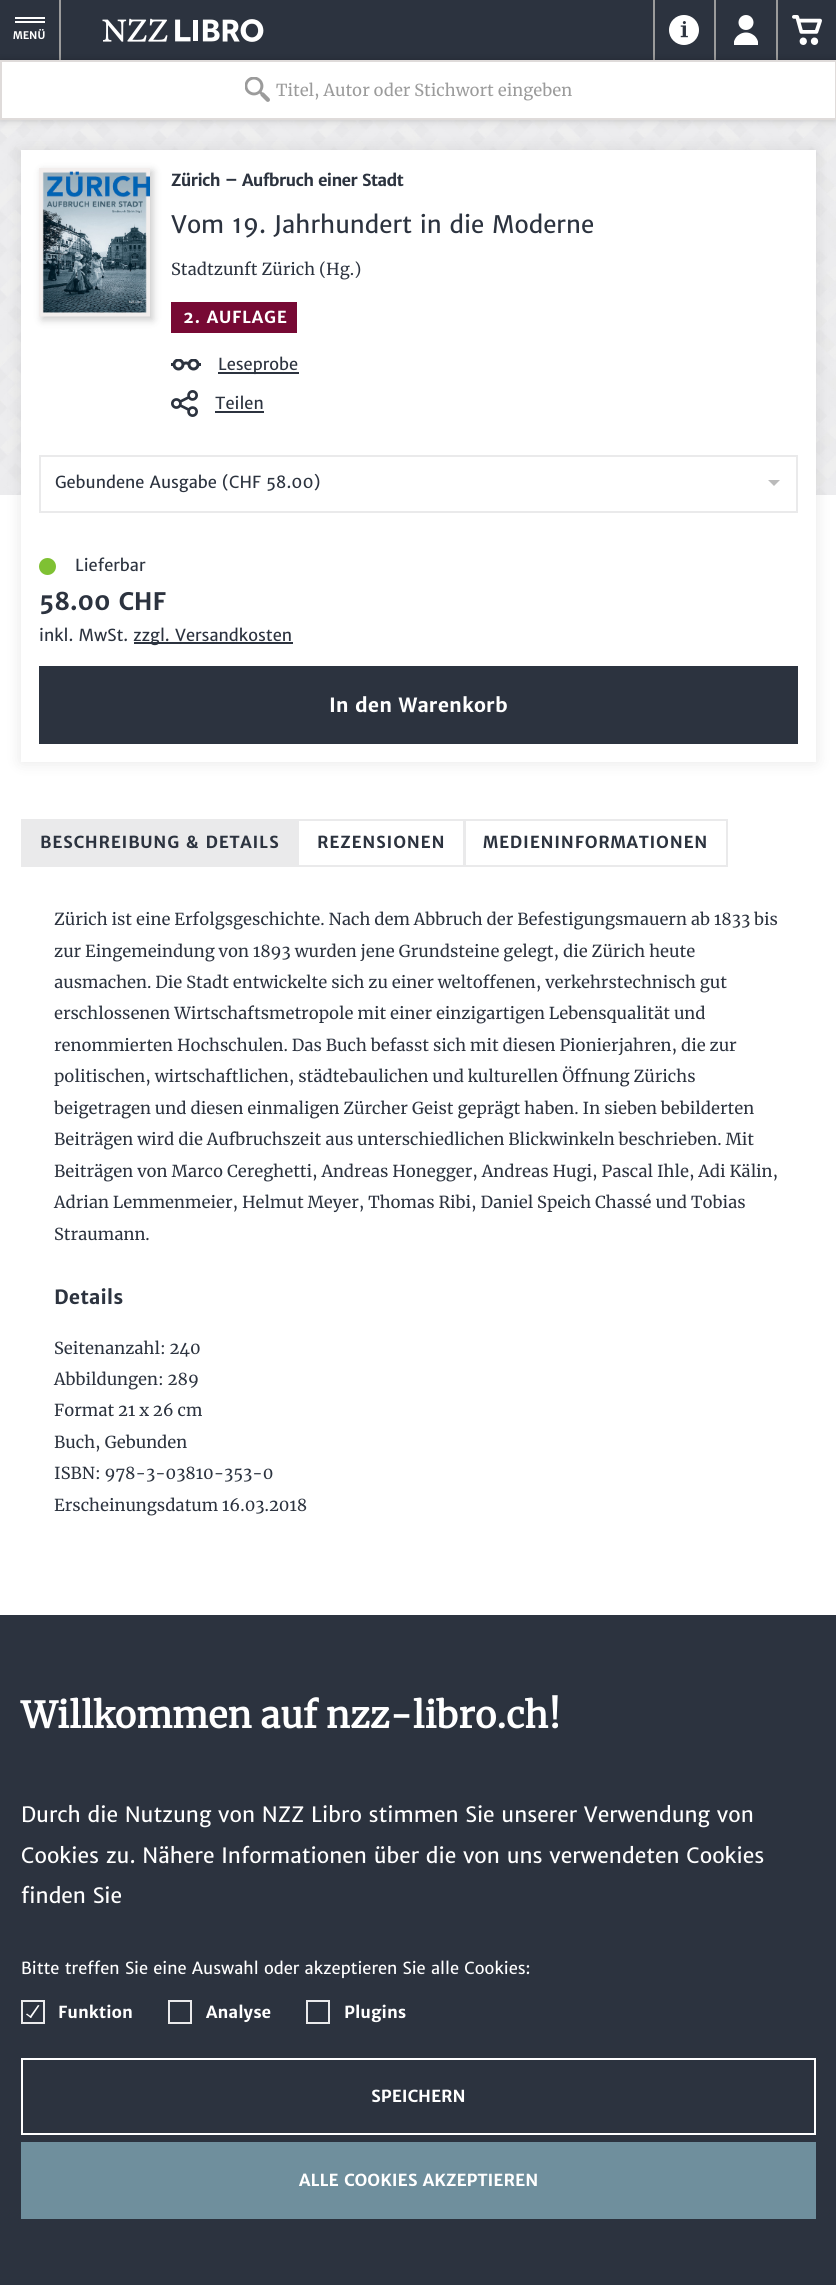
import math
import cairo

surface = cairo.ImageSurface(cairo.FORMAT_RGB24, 836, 2285)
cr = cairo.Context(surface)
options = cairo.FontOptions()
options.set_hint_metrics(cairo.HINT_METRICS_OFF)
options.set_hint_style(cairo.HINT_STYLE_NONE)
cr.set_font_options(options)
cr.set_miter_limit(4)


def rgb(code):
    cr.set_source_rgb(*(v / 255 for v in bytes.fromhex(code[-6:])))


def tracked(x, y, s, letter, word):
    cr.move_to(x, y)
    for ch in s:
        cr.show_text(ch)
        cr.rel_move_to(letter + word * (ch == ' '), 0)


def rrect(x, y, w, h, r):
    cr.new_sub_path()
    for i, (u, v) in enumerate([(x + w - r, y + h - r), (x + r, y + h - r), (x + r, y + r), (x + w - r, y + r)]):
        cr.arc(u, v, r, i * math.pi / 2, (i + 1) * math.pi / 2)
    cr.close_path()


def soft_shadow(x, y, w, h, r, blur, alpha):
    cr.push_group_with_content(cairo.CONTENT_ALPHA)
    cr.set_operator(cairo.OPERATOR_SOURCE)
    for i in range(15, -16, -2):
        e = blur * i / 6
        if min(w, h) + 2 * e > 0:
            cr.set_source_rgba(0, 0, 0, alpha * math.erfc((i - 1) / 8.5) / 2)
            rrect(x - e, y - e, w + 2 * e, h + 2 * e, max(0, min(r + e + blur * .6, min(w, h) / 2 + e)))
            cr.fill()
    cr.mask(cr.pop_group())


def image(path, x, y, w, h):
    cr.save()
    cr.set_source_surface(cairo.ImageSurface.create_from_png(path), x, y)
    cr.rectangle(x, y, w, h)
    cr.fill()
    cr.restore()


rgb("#ffffff")
cr.paint()
for x, y, w, h, color in [
    (0, 0, 836, 60, "#2c333f"),
    (59, 0, 2, 60, "#9b9b9b"),
    (15, 17, 30, 2, "#ffffff"),
    (15, 21, 30, 2, "#ffffff"),
]:
    rgb(color)
    cr.rectangle(x, y, w, h)
    cr.fill()
image("img/1.png", 102, 18, 162, 24)
rgb("#9b9b9b")
cr.rectangle(653, 0, 2, 60)
cr.fill()
image("img/2.png", 669, 15, 30, 30)
cr.rectangle(714, 0, 2, 60)
cr.fill()
image("img/3.png", 734, 15, 24, 30)
cr.rectangle(776, 0, 2, 60)
cr.fill()
image("img/4.png", 792, 15, 30, 30)
image("img/6.png", 0, 120, 836, 375)
rgb("#000000")
soft_shadow(0, 60, 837, 60, 0, 4, 0.2)
rgb("#ffffff")
cr.rectangle(1, 61, 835, 58)
cr.fill_preserve()
rgb("#dfdbda")
cr.stroke()
image("img/5.png", 245, 77, 25, 25)
rgb("#000000")
soft_shadow(21, 150, 795, 612, 0, 7.5, 0.1)
rgb("#ffffff")
cr.rectangle(21, 150, 795, 612)
cr.fill()
rgb("#000000")
soft_shadow(42, 171, 111, 149, 0, 4, 0.2)
image("img/7.png", 39, 168, 111, 149)
rgb("#770934")
cr.rectangle(171, 302, 126, 31)
cr.fill()
image("img/8.png", 171, 359, 30, 12)
rgb("#2c333f")
cr.rectangle(218, 372, 81, 2)
cr.fill()
image("img/9.png", 171, 390, 27, 27)
cr.rectangle(215, 411, 49, 2)
cr.fill()
cr.rectangle(40, 456, 757, 56)
rgb("#eaeaeb")
cr.stroke()
rgb("#bbbbbb")
cr.new_path()
cr.move_to(768, 480)
cr.line_to(780, 480)
cr.line_to(774, 486)
cr.close_path()
cr.fill()
rgb("#7fc133")
cr.arc(47.5, 566.5, 8.5, 0, 2 * math.pi)
cr.fill()
for x, y, w, h, color in [
    (134, 642, 159, 2, "#2c333f"),
    (39, 666, 759, 78, "#2c333f"),
    (21, 819, 276, 48, "#eaeaeb"),
]:
    rgb(color)
    cr.rectangle(x, y, w, h)
    cr.fill()
cr.rectangle(298, 820, 166, 46)
cr.stroke()
cr.rectangle(465, 820, 262, 46)
cr.stroke()
rgb("#2c333f")
cr.rectangle(0, 1615, 836, 670)
cr.fill()
cr.rectangle(22, 2001, 22, 22)
rgb("#eaeaeb")
cr.stroke()
rgb("#ffffff")
cr.new_path()
cr.move_to(29.5, 2017)
cr.line_to(38, 2005)
cr.line_to(39.5, 2005.5)
cr.line_to(31, 2018)
cr.close_path()
cr.fill()
cr.new_path()
cr.move_to(26, 2014.5)
cr.line_to(27, 2013.5)
cr.line_to(31.5, 2017)
cr.line_to(31, 2018)
cr.close_path()
cr.fill()
cr.rectangle(169, 2001, 22, 22)
rgb("#eaeaeb")
cr.stroke()
cr.rectangle(307, 2001, 22, 22)
cr.stroke()
cr.rectangle(22, 2059, 793, 75)
rgb("#ffffff")
cr.stroke()
rgb("#6f8f9d")
cr.rectangle(21, 2142, 795, 77)
cr.fill()
cr.select_font_face("Merriweather Sans", cairo.FONT_SLANT_NORMAL, cairo.FONT_WEIGHT_BOLD)
cr.set_font_size(10.5)
rgb("#ffffff")
cr.move_to(13, 39)
cr.show_text("MENÜ")
cr.select_font_face("Merriweather")
cr.set_font_size(16.5)
rgb("#9b9b9b")
cr.move_to(276, 96)
cr.show_text("Titel, Autor oder Stichwort eingeben")
cr.select_font_face("Merriweather Sans", cairo.FONT_SLANT_NORMAL, cairo.FONT_WEIGHT_BOLD)
rgb("#2c333f")
tracked(171, 186, "Zürich – Aufbruch einer Stadt", -0.75, 0)
cr.select_font_face("Merriweather Sans")
cr.set_font_size(24)
cr.move_to(171, 233)
cr.show_text("Vom 19. Jahrhundert in die Moderne")
cr.select_font_face("Merriweather")
cr.set_font_size(16.5)
cr.move_to(171, 275)
cr.show_text("Stadtzunft Zürich (Hg.)")
cr.select_font_face("Merriweather Sans", cairo.FONT_SLANT_NORMAL, cairo.FONT_WEIGHT_BOLD)
rgb("#ffffff")
tracked(183, 323, "2. AUFLAGE", 0.75, 0)
cr.select_font_face("Merriweather Sans")
rgb("#2c333f")
for x, y, s in [
    (218, 370, "Leseprobe"),
    (215, 409, "Teilen"),
    (55, 488, "Gebundene Ausgabe (CHF 58.00)"),
    (75, 571, "Lieferbar"),
]:
    cr.move_to(x, y)
    cr.show_text(s)
cr.select_font_face("Merriweather Sans", cairo.FONT_SLANT_NORMAL, cairo.FONT_WEIGHT_BOLD)
cr.set_font_size(24)
cr.move_to(39, 610)
cr.show_text("58.00 CHF")
cr.select_font_face("Merriweather Sans")
cr.set_font_size(16.5)
cr.move_to(39, 641)
cr.show_text("inkl. MwSt.")
cr.move_to(133, 641)
cr.show_text("zzgl. Versandkosten")
cr.select_font_face("Merriweather Sans", cairo.FONT_SLANT_NORMAL, cairo.FONT_WEIGHT_BOLD)
cr.set_font_size(19.5)
rgb("#ffffff")
cr.move_to(329, 712)
cr.show_text("In den Warenkorb")
cr.set_font_size(16.5)
rgb("#2c333f")
for x, y, s in [
    (40, 848, "BESCHREIBUNG & DETAILS"),
    (317, 848, "REZENSIONEN"),
    (483, 848, "MEDIENINFORMATIONEN"),
]:
    tracked(x, y, s, 0.75, 0)
cr.select_font_face("Merriweather")
for x, y, s in [
    (54, 925, "Zürich ist eine Erfolgsgeschichte. Nach dem Abbruch der Befestigungsmauern ab 1833 bis"),
    (54, 957, "zur Eingemeindung von 1893 wurden jene Grundsteine gelegt, die Zürich heute"),
    (54, 988, "ausmachen. Die Stadt entwickelte sich zu einer weltoffenen, verkehrstechnisch gut"),
    (54, 1019, "erschlossenen Wirtschaftsmetropole mit einer einzigartigen Lebensqualität und"),
    (54, 1051, "renommierten Hochschulen. Das Buch befasst sich mit diesen Pionierjahren, die zur"),
    (54, 1082, "politischen, wirtschaftlichen, städtebaulichen und kulturellen Öffnung Zürichs"),
    (54, 1114, "beigetragen und diesen einmaligen Zürcher Geist geprägt haben. In sieben bebilderten"),
    (54, 1145, "Beiträgen wird die Aufbruchszeit aus unterschiedlichen Blickwinkeln beschrieben. Mit"),
    (54, 1177, "Beiträgen von Marco Cereghetti, Andreas Honegger, Andreas Hugi, Pascal Ihle, Adi Kälin,"),
    (54, 1208, "Adrian Lemmenmeier, Helmut Meyer, Thomas Ribi, Daniel Speich Chassé und Tobias"),
    (54, 1240, "Straumann."),
]:
    cr.move_to(x, y)
    cr.show_text(s)
cr.select_font_face("Merriweather Sans", cairo.FONT_SLANT_NORMAL, cairo.FONT_WEIGHT_BOLD)
cr.set_font_size(19.5)
cr.move_to(54, 1304)
cr.show_text("Details")
cr.select_font_face("Merriweather")
cr.set_font_size(16.5)
for x, y, s in [
    (54, 1354, "Seitenanzahl: 240"),
    (54, 1385, "Abbildungen: 289"),
    (54, 1416, "Format 21 x 26 cm"),
    (54, 1448, "Buch, Gebunden"),
    (54, 1479, "ISBN: 978-3-03810-353-0"),
    (54, 1511, "Erscheinungsdatum 16.03.2018"),
]:
    cr.move_to(x, y)
    cr.show_text(s)
cr.select_font_face("Merriweather", cairo.FONT_SLANT_NORMAL, cairo.FONT_WEIGHT_BOLD)
cr.set_font_size(36)
rgb("#ffffff")
cr.move_to(21, 1728)
cr.show_text("Willkommen auf nzz-libro.ch!")
cr.select_font_face("Merriweather Sans")
cr.set_font_size(21)
for x, y, s in [
    (21, 1822, "Durch die Nutzung von NZZ Libro stimmen Sie unserer Verwendung von"),
    (21, 1863, "Cookies zu. Nähere Informationen über die von uns verwendeten Cookies"),
    (21, 1903, "finden Sie"),
]:
    cr.move_to(x, y)
    cr.show_text(s)
cr.set_font_size(16.5)
cr.move_to(21, 1974)
cr.show_text("Bitte treffen Sie eine Auswahl oder akzeptieren Sie alle Cookies:")
cr.select_font_face("Merriweather Sans", cairo.FONT_SLANT_NORMAL, cairo.FONT_WEIGHT_BOLD)
for x, y, s in [
    (58, 2018, "Funktion"),
    (206, 2018, "Analyse"),
    (344, 2018, "Plugins"),
    (371, 2102, "SPEICHERN"),
    (299, 2186, "ALLE COOKIES AKZEPTIEREN"),
]:
    cr.move_to(x, y)
    cr.show_text(s)
surface.write_to_png("page.png")
